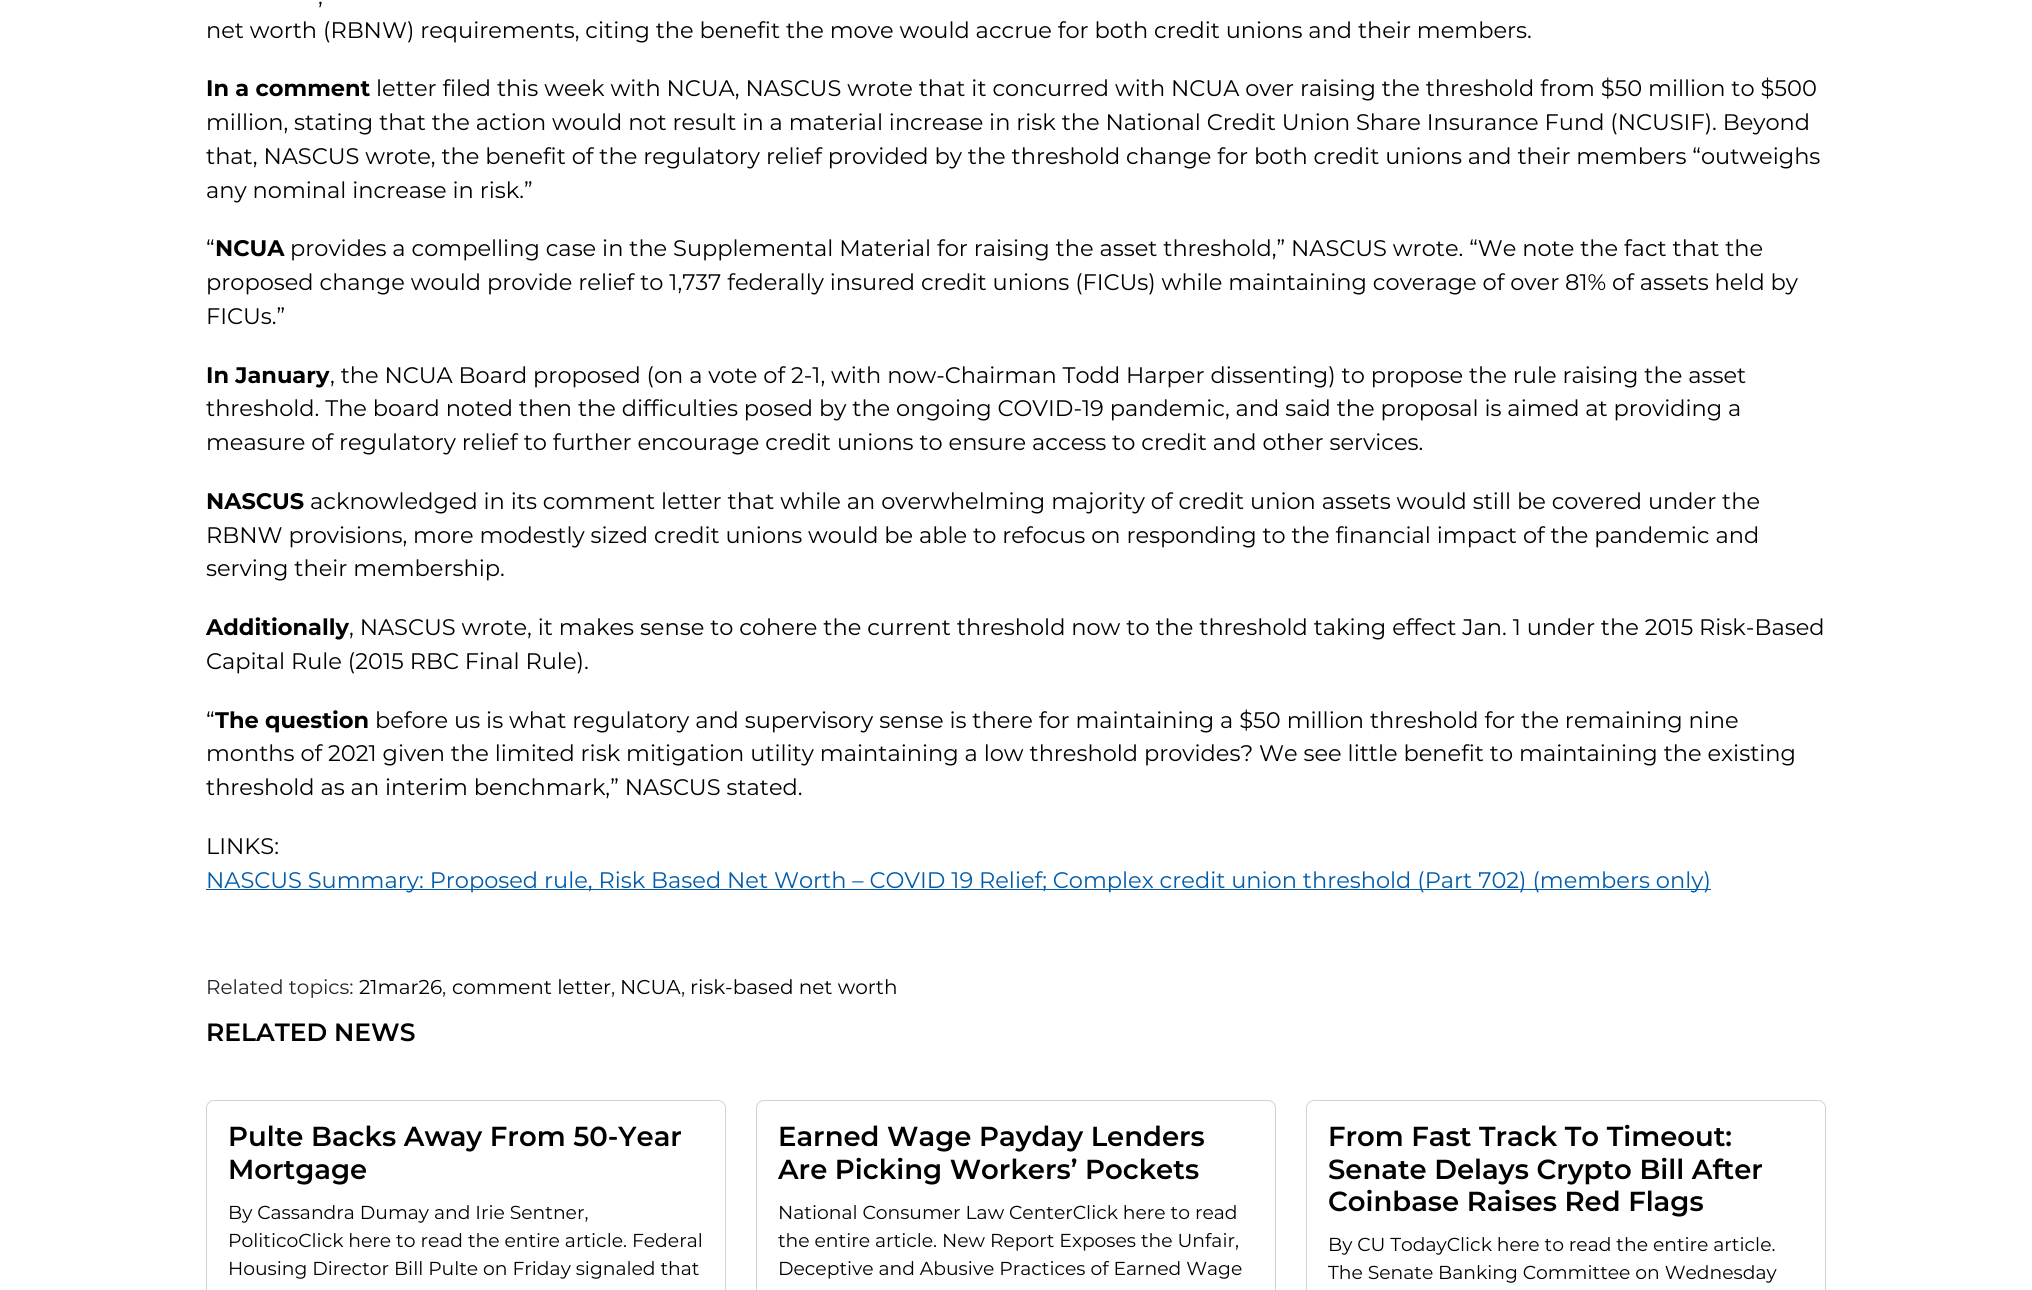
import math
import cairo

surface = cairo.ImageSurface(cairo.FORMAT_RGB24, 2032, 1290)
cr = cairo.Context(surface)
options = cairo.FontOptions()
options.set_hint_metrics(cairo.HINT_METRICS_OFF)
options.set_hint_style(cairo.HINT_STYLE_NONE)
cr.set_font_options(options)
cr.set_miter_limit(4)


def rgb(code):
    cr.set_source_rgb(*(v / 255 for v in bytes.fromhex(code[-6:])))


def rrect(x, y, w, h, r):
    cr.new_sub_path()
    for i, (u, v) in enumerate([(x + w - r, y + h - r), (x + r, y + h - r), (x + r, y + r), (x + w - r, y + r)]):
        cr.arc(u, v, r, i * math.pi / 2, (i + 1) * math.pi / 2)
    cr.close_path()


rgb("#ffffff")
cr.paint()
rgb("#005cab")
cr.rectangle(206, 889, 1505, 1)
cr.fill()
rrect(206.5, 1100.5, 519, 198, 7.5)
rgb("#d2d2d2")
cr.set_line_width(1)
cr.stroke()
rrect(756.5, 1100.5, 519, 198, 7.5)
cr.stroke()
rrect(1306.5, 1100.5, 519, 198, 7.5)
cr.stroke()
cr.select_font_face("Montserrat")
cr.set_font_size(22.5)
rgb("#000000")
cr.move_to(318, 4)
cr.show_text(",")
cr.move_to(206, 38)
cr.show_text("net worth (RBNW) requirements, citing the benefit the move would accrue for both credit unions and their members.")
cr.select_font_face("Montserrat", cairo.FONT_SLANT_NORMAL, cairo.FONT_WEIGHT_BOLD)
cr.move_to(206, 96)
cr.show_text("In a comment")
cr.select_font_face("Montserrat")
for x, y, s in [
    (376, 96, "letter filed this week with NCUA, NASCUS wrote that it concurred with NCUA over raising the threshold from $50 million to $500"),
    (206, 130, "million, stating that the action would not result in a material increase in risk the National Credit Union Share Insurance Fund (NCUSIF). Beyond"),
    (206, 164, "that, NASCUS wrote, the benefit of the regulatory relief provided by the threshold change for both credit unions and their members “outweighs"),
    (206, 198, "any nominal increase in risk.”"),
    (206, 256, "“"),
]:
    cr.move_to(x, y)
    cr.show_text(s)
cr.select_font_face("Montserrat", cairo.FONT_SLANT_NORMAL, cairo.FONT_WEIGHT_BOLD)
cr.move_to(215, 256)
cr.show_text("NCUA")
cr.select_font_face("Montserrat")
for x, y, s in [
    (290, 256, "provides a compelling case in the Supplemental Material for raising the asset threshold,” NASCUS wrote. “We note the fact that the"),
    (206, 290, "proposed change would provide relief to 1,737 federally insured credit unions (FICUs) while maintaining coverage of over 81% of assets held by"),
    (206, 324, "FICUs.”"),
]:
    cr.move_to(x, y)
    cr.show_text(s)
cr.select_font_face("Montserrat", cairo.FONT_SLANT_NORMAL, cairo.FONT_WEIGHT_BOLD)
cr.move_to(206, 383)
cr.show_text("In January")
cr.select_font_face("Montserrat")
for x, y, s in [
    (330, 383, ", the NCUA Board proposed (on a vote of 2-1, with now-Chairman Todd Harper dissenting) to propose the rule raising the asset"),
    (206, 416, "threshold. The board noted then the difficulties posed by the ongoing COVID-19 pandemic, and said the proposal is aimed at providing a"),
    (206, 450, "measure of regulatory relief to further encourage credit unions to ensure access to credit and other services."),
]:
    cr.move_to(x, y)
    cr.show_text(s)
cr.select_font_face("Montserrat", cairo.FONT_SLANT_NORMAL, cairo.FONT_WEIGHT_BOLD)
cr.move_to(206, 509)
cr.show_text("NASCUS")
cr.select_font_face("Montserrat")
for x, y, s in [
    (310, 509, "acknowledged in its comment letter that while an overwhelming majority of credit union assets would still be covered under the"),
    (206, 543, "RBNW provisions, more modestly sized credit unions would be able to refocus on responding to the financial impact of the pandemic and"),
    (206, 576, "serving their membership."),
]:
    cr.move_to(x, y)
    cr.show_text(s)
cr.select_font_face("Montserrat", cairo.FONT_SLANT_NORMAL, cairo.FONT_WEIGHT_BOLD)
cr.move_to(206, 635)
cr.show_text("Additionally")
cr.select_font_face("Montserrat")
for x, y, s in [
    (349, 635, ", NASCUS wrote, it makes sense to cohere the current threshold now to the threshold taking effect Jan. 1 under the 2015 Risk-Based"),
    (206, 669, "Capital Rule (2015 RBC Final Rule)."),
    (206, 728, "“"),
]:
    cr.move_to(x, y)
    cr.show_text(s)
cr.select_font_face("Montserrat", cairo.FONT_SLANT_NORMAL, cairo.FONT_WEIGHT_BOLD)
cr.move_to(215, 728)
cr.show_text("The question")
cr.select_font_face("Montserrat")
for x, y, s in [
    (375, 728, "before us is what regulatory and supervisory sense is there for maintaining a $50 million threshold for the remaining nine"),
    (206, 761, "months of 2021 given the limited risk mitigation utility maintaining a low threshold provides? We see little benefit to maintaining the existing"),
    (206, 795, "threshold as an interim benchmark,” NASCUS stated."),
    (206, 854, "LINKS:"),
]:
    cr.move_to(x, y)
    cr.show_text(s)
rgb("#005cab")
cr.move_to(206, 888)
cr.show_text("NASCUS Summary: Proposed rule, Risk Based Net Worth – COVID 19 Relief; Complex credit union threshold (Part 702) (members only)")
cr.set_font_size(20)
rgb("#212529")
cr.move_to(206, 994)
cr.show_text("Related topics:")
rgb("#000000")
cr.move_to(359, 994)
cr.show_text("21mar26")
rgb("#212529")
cr.move_to(442, 994)
cr.show_text(",")
rgb("#000000")
cr.move_to(452, 994)
cr.show_text("comment letter")
rgb("#212529")
cr.move_to(611, 994)
cr.show_text(",")
rgb("#000000")
cr.move_to(620, 994)
cr.show_text("NCUA")
rgb("#212529")
cr.move_to(681, 994)
cr.show_text(",")
rgb("#000000")
cr.move_to(690, 994)
cr.show_text("risk-based net worth")
cr.select_font_face("Montserrat SemiBold")
cr.set_font_size(25)
cr.move_to(206, 1041)
cr.show_text("RELATED NEWS")
cr.set_font_size(27.5)
cr.move_to(228, 1146)
cr.show_text("Pulte Backs Away From 50-Year")
cr.move_to(228, 1179)
cr.show_text("Mortgage")
cr.select_font_face("Montserrat")
cr.set_font_size(18.75)
for x, y, s in [
    (228, 1219, "By Cassandra Dumay and Irie Sentner,"),
    (228, 1247, "PoliticoClick here to read the entire article. Federal"),
    (228, 1275, "Housing Director Bill Pulte on Friday signaled that"),
]:
    cr.move_to(x, y)
    cr.show_text(s)
cr.select_font_face("Montserrat SemiBold")
cr.set_font_size(27.5)
cr.move_to(778, 1146)
cr.show_text("Earned Wage Payday Lenders")
cr.move_to(778, 1179)
cr.show_text("Are Picking Workers’ Pockets")
cr.select_font_face("Montserrat")
cr.set_font_size(18.75)
for x, y, s in [
    (778, 1219, "National Consumer Law CenterClick here to read"),
    (778, 1247, "the entire article. New Report Exposes the Unfair,"),
    (778, 1275, "Deceptive and Abusive Practices of Earned Wage"),
]:
    cr.move_to(x, y)
    cr.show_text(s)
cr.select_font_face("Montserrat SemiBold")
cr.set_font_size(27.5)
for x, y, s in [
    (1328, 1146, "From Fast Track To Timeout:"),
    (1328, 1179, "Senate Delays Crypto Bill After"),
    (1328, 1211, "Coinbase Raises Red Flags"),
]:
    cr.move_to(x, y)
    cr.show_text(s)
cr.select_font_face("Montserrat")
cr.set_font_size(18.75)
cr.move_to(1328, 1251)
cr.show_text("By CU TodayClick here to read the entire article.")
cr.move_to(1328, 1279)
cr.show_text("The Senate Banking Committee on Wednesday")
surface.write_to_png("page.png")
